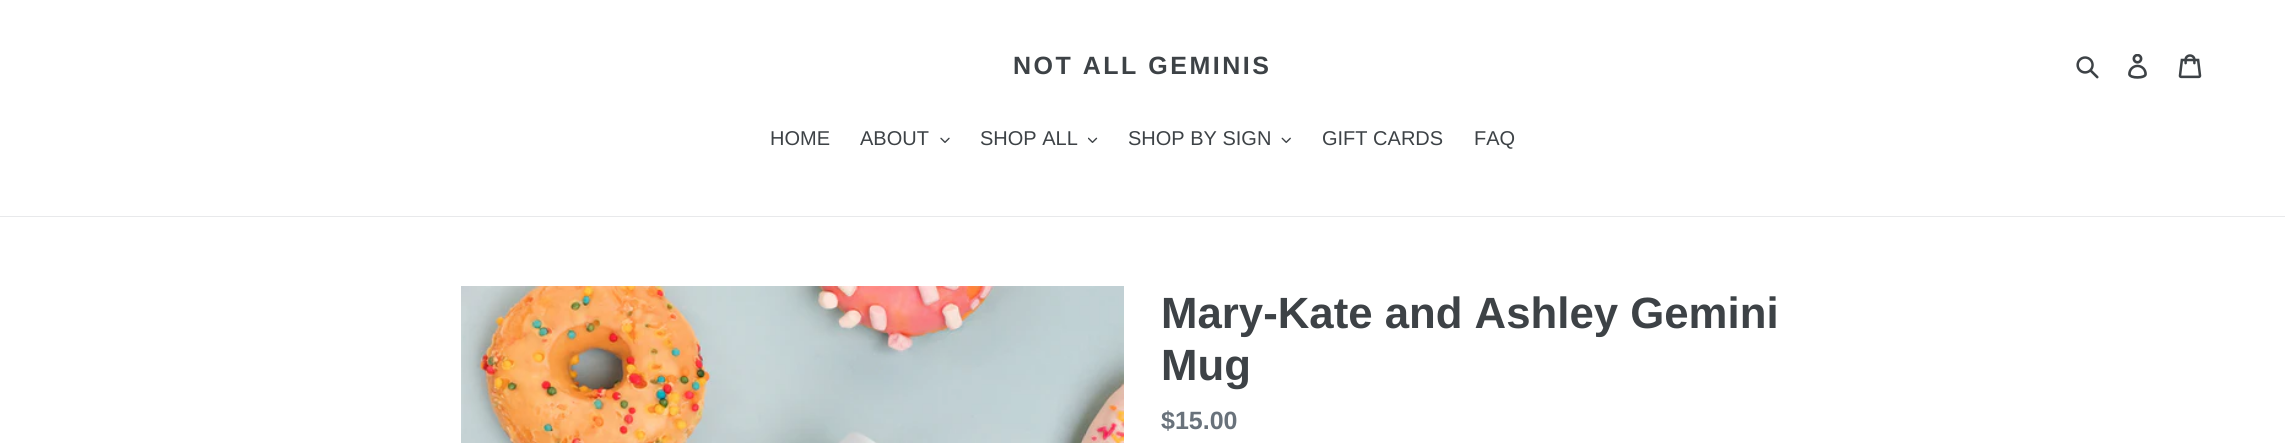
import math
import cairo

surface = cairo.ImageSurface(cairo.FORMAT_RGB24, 2285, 443)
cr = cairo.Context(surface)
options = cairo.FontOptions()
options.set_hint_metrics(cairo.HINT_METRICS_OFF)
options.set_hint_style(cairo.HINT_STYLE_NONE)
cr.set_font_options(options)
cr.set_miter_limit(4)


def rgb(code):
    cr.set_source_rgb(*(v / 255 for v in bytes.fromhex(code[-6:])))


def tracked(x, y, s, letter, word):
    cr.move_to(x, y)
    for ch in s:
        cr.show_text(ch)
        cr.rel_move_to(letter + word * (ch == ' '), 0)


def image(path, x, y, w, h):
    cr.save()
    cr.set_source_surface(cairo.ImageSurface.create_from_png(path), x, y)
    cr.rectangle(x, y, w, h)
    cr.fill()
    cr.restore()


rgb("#ffffff")
cr.paint()
image("img/1.png", 2076, 56, 23, 23)
image("img/2.png", 2128, 54, 19, 25)
image("img/3.png", 2178, 54, 24, 25)
rgb("#e8e9eb")
cr.rectangle(0, 216, 2285, 1)
cr.fill()
image("img/4.png", 940, 137, 10, 6)
image("img/5.png", 1088, 137, 10, 6)
image("img/6.png", 1281, 137, 10, 6)
image("img/7.png", 461, 286, 663, 157)
cr.select_font_face("Liberation Sans", cairo.FONT_SLANT_NORMAL, cairo.FONT_WEIGHT_BOLD)
cr.set_font_size(25)
rgb("#3d4246")
tracked(1013, 74, "NOT ALL GEMINIS", 2.5, 0)
cr.select_font_face("Liberation Sans")
cr.set_font_size(20)
for x, y, s in [
    (770, 145, "HOME"),
    (860, 145, "ABOUT"),
    (980, 145, "SHOP ALL"),
    (1128, 145, "SHOP BY SIGN"),
    (1322, 145, "GIFT CARDS"),
    (1474, 145, "FAQ"),
]:
    cr.move_to(x, y)
    cr.show_text(s)
cr.select_font_face("Liberation Sans", cairo.FONT_SLANT_NORMAL, cairo.FONT_WEIGHT_BOLD)
cr.set_font_size(43.75)
cr.move_to(1161, 328)
cr.show_text("Mary-Kate and Ashley Gemini")
cr.move_to(1161, 380)
cr.show_text("Mug")
cr.set_font_size(25)
rgb("#69727b")
cr.move_to(1161, 429)
cr.show_text("$15.00")
surface.write_to_png("page.png")
